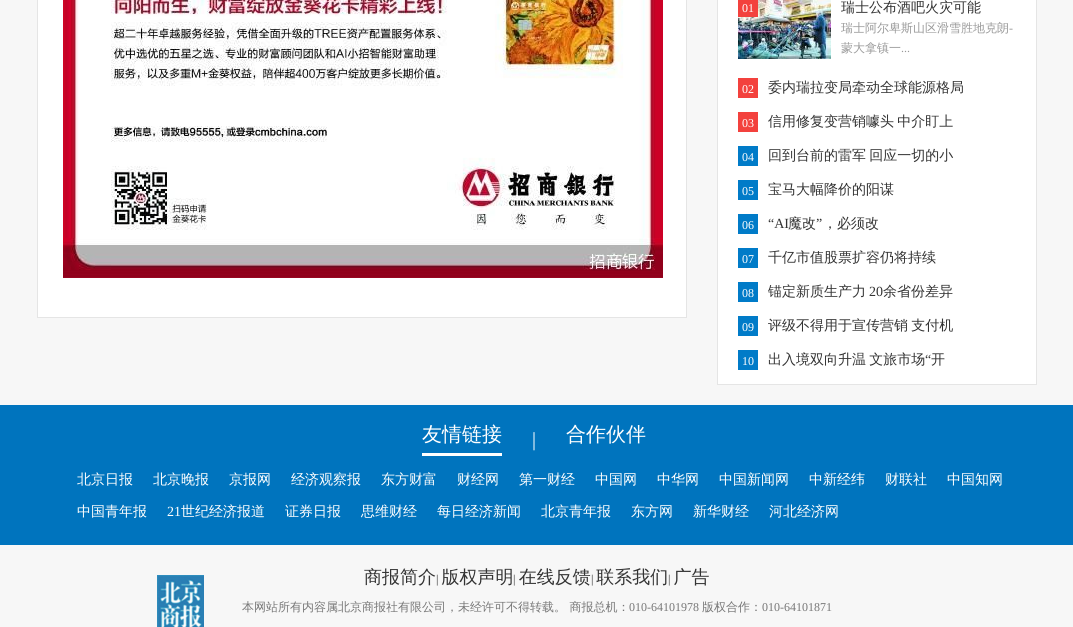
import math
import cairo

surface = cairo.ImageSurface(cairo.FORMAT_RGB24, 1073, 627)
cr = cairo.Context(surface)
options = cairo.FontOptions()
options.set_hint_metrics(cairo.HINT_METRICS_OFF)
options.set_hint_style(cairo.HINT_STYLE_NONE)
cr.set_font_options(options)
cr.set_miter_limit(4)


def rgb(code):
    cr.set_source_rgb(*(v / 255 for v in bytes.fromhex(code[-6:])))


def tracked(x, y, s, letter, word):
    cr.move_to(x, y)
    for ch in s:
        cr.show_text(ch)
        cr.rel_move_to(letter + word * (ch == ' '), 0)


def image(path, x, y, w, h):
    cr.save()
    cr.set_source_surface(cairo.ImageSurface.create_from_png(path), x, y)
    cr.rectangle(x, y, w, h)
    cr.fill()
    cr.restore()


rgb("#f7f7f7")
cr.paint()
rgb("#ffffff")
cr.rectangle(38, 0, 648, 317)
cr.fill()
rgb("#e5e5e5")
cr.new_path()
cr.move_to(687, -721)
cr.line_to(687, 318)
cr.line_to(686, 317)
cr.line_to(686, -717)
cr.close_path()
cr.fill()
cr.rectangle(37, 317, 650, 1)
cr.fill()
cr.new_path()
cr.move_to(37, 318)
cr.line_to(37, -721)
cr.line_to(38, -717)
cr.line_to(38, 317)
cr.close_path()
cr.fill()
image("img/1.png", 63, 0, 600, 278)
rgb("#ffffff")
cr.rectangle(717.5, -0.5, 319, 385)
cr.fill_preserve()
rgb("#e5e5e5")
cr.set_line_width(1)
cr.stroke()
image("img/2.png", 738, 0, 93, 59)
for x, y, w, h, color in [
    (738, 0, 20, 17, "#f3413d"),
    (738, 78, 20, 20, "#f3413d"),
    (738, 112, 20, 20, "#f3413d"),
    (738, 146, 20, 20, "#007bc8"),
    (738, 180, 20, 20, "#007bc8"),
    (738, 214, 20, 20, "#007bc8"),
    (738, 248, 20, 20, "#007bc8"),
    (738, 282, 20, 20, "#007bc8"),
    (738, 316, 20, 20, "#007bc8"),
    (738, 350, 20, 20, "#007bc8"),
    (0, 405, 1073, 140, "#0074be"),
    (422, 453, 80, 3, "#ffffff"),
]:
    rgb(color)
    cr.rectangle(x, y, w, h)
    cr.fill()
image("img/3.png", 157, 575, 47, 52)
cr.select_font_face("Liberation Serif")
cr.set_font_size(12)
cr.move_to(742, 12)
cr.show_text("01")
cr.select_font_face("WenQuanYi Zen Hei Medium")
cr.set_font_size(14)
rgb("#333333")
cr.move_to(841, 12)
cr.show_text("瑞士公布酒吧火灾可能")
cr.set_font_size(12)
rgb("#999999")
cr.move_to(841, 32)
cr.show_text("瑞士阿尔卑斯山区滑雪胜地克朗")
cr.select_font_face("Liberation Serif")
cr.move_to(1009, 32)
cr.show_text("-")
cr.select_font_face("WenQuanYi Zen Hei Medium")
cr.move_to(841, 52)
cr.show_text("蒙大拿镇一")
cr.select_font_face("Liberation Serif")
cr.move_to(901, 52)
cr.show_text("...")
rgb("#ffffff")
cr.move_to(742, 93)
cr.show_text("02")
cr.select_font_face("WenQuanYi Zen Hei Medium")
cr.set_font_size(14)
rgb("#333333")
cr.move_to(768, 92)
cr.show_text("委内瑞拉变局牵动全球能源格局")
cr.select_font_face("Liberation Serif")
cr.set_font_size(12)
rgb("#ffffff")
cr.move_to(742, 127)
cr.show_text("03")
cr.select_font_face("WenQuanYi Zen Hei Medium")
cr.set_font_size(14)
rgb("#333333")
tracked(768, 126, "信用修复变营销噱头 中介盯上", 0, -1)
cr.select_font_face("Liberation Serif")
cr.set_font_size(12)
rgb("#ffffff")
cr.move_to(742, 161)
cr.show_text("04")
cr.select_font_face("WenQuanYi Zen Hei Medium")
cr.set_font_size(14)
rgb("#333333")
tracked(768, 160, "回到台前的雷军 回应一切的小", 0, -1)
cr.select_font_face("Liberation Serif")
cr.set_font_size(12)
rgb("#ffffff")
cr.move_to(742, 195)
cr.show_text("05")
cr.select_font_face("WenQuanYi Zen Hei Medium")
cr.set_font_size(14)
rgb("#333333")
cr.move_to(768, 194)
cr.show_text("宝马大幅降价的阳谋")
cr.select_font_face("Liberation Serif")
cr.set_font_size(12)
rgb("#ffffff")
cr.move_to(742, 229)
cr.show_text("06")
cr.set_font_size(14)
rgb("#333333")
cr.move_to(768, 228)
cr.show_text("“AI")
cr.select_font_face("WenQuanYi Zen Hei Medium")
cr.move_to(788, 228)
cr.show_text("魔改")
cr.select_font_face("Liberation Serif")
cr.move_to(816, 228)
cr.show_text("”")
cr.select_font_face("WenQuanYi Zen Hei Medium")
cr.move_to(823, 228)
cr.show_text("，必须改")
cr.select_font_face("Liberation Serif")
cr.set_font_size(12)
rgb("#ffffff")
cr.move_to(742, 263)
cr.show_text("07")
cr.select_font_face("WenQuanYi Zen Hei Medium")
cr.set_font_size(14)
rgb("#333333")
cr.move_to(768, 262)
cr.show_text("千亿市值股票扩容仍将持续")
cr.select_font_face("Liberation Serif")
cr.set_font_size(12)
rgb("#ffffff")
cr.move_to(742, 297)
cr.show_text("08")
cr.select_font_face("WenQuanYi Zen Hei Medium")
cr.set_font_size(14)
rgb("#333333")
cr.move_to(768, 296)
cr.show_text("锚定新质生产力")
cr.select_font_face("Liberation Serif")
cr.move_to(869, 296)
cr.show_text("20")
cr.select_font_face("WenQuanYi Zen Hei Medium")
cr.move_to(883, 296)
cr.show_text("余省份差异")
cr.select_font_face("Liberation Serif")
cr.set_font_size(12)
rgb("#ffffff")
cr.move_to(742, 331)
cr.show_text("09")
cr.select_font_face("WenQuanYi Zen Hei Medium")
cr.set_font_size(14)
rgb("#333333")
tracked(768, 330, "评级不得用于宣传营销 支付机", 0, -1)
cr.select_font_face("Liberation Serif")
cr.set_font_size(12)
rgb("#ffffff")
cr.move_to(742, 365)
cr.show_text("10")
cr.select_font_face("WenQuanYi Zen Hei Medium")
cr.set_font_size(14)
rgb("#333333")
tracked(768, 364, "出入境双向升温 文旅市场", 0, -1)
cr.select_font_face("Liberation Serif")
cr.move_to(925, 364)
cr.show_text("“")
cr.select_font_face("WenQuanYi Zen Hei Medium")
cr.move_to(931, 364)
cr.show_text("开")
cr.set_font_size(20)
rgb("#ffffff")
cr.move_to(422, 441)
cr.show_text("友情链接")
cr.select_font_face("Liberation Serif")
cr.move_to(532, 446)
cr.show_text("|")
cr.select_font_face("WenQuanYi Zen Hei Medium")
cr.move_to(566, 441)
cr.show_text("合作伙伴")
cr.set_font_size(14)
for x, y, s in [
    (77, 484, "北京日报"),
    (153, 484, "北京晚报"),
    (229, 484, "京报网"),
    (291, 484, "经济观察报"),
    (381, 484, "东方财富"),
    (457, 484, "财经网"),
    (519, 484, "第一财经"),
    (595, 484, "中国网"),
    (657, 484, "中华网"),
    (719, 484, "中国新闻网"),
    (809, 484, "中新经纬"),
    (885, 484, "财联社"),
    (947, 484, "中国知网"),
    (77, 516, "中国青年报"),
]:
    cr.move_to(x, y)
    cr.show_text(s)
cr.select_font_face("Liberation Serif")
cr.move_to(167, 516)
cr.show_text("21")
cr.select_font_face("WenQuanYi Zen Hei Medium")
for x, y, s in [
    (181, 516, "世纪经济报道"),
    (285, 516, "证券日报"),
    (361, 516, "思维财经"),
    (437, 516, "每日经济新闻"),
    (541, 516, "北京青年报"),
    (631, 516, "东方网"),
    (693, 516, "新华财经"),
    (769, 516, "河北经济网"),
]:
    cr.move_to(x, y)
    cr.show_text(s)
cr.set_font_size(18)
rgb("#333333")
cr.move_to(364, 583)
cr.show_text("商报简介 版权声明 在线反馈 联系我们 广告")
cr.select_font_face("Liberation Serif")
cr.set_font_size(12)
for x, y, s in [
    (436, 583, "|"),
    (513, 583, "|"),
    (591, 583, "|"),
    (668, 583, "|"),
]:
    cr.move_to(x, y)
    cr.show_text(s)
cr.select_font_face("WenQuanYi Zen Hei Medium")
rgb("#777777")
cr.move_to(242, 611)
cr.show_text("本网站所有内容属北京商报社有限公司，未经许可不得转载。 商报总机：")
cr.select_font_face("Liberation Serif")
cr.move_to(629, 611)
cr.show_text("010-64101978")
cr.select_font_face("WenQuanYi Zen Hei Medium")
cr.move_to(702, 611)
cr.show_text("版权合作：")
cr.select_font_face("Liberation Serif")
cr.move_to(762, 611)
cr.show_text("010-64101871")
surface.write_to_png("page.png")
